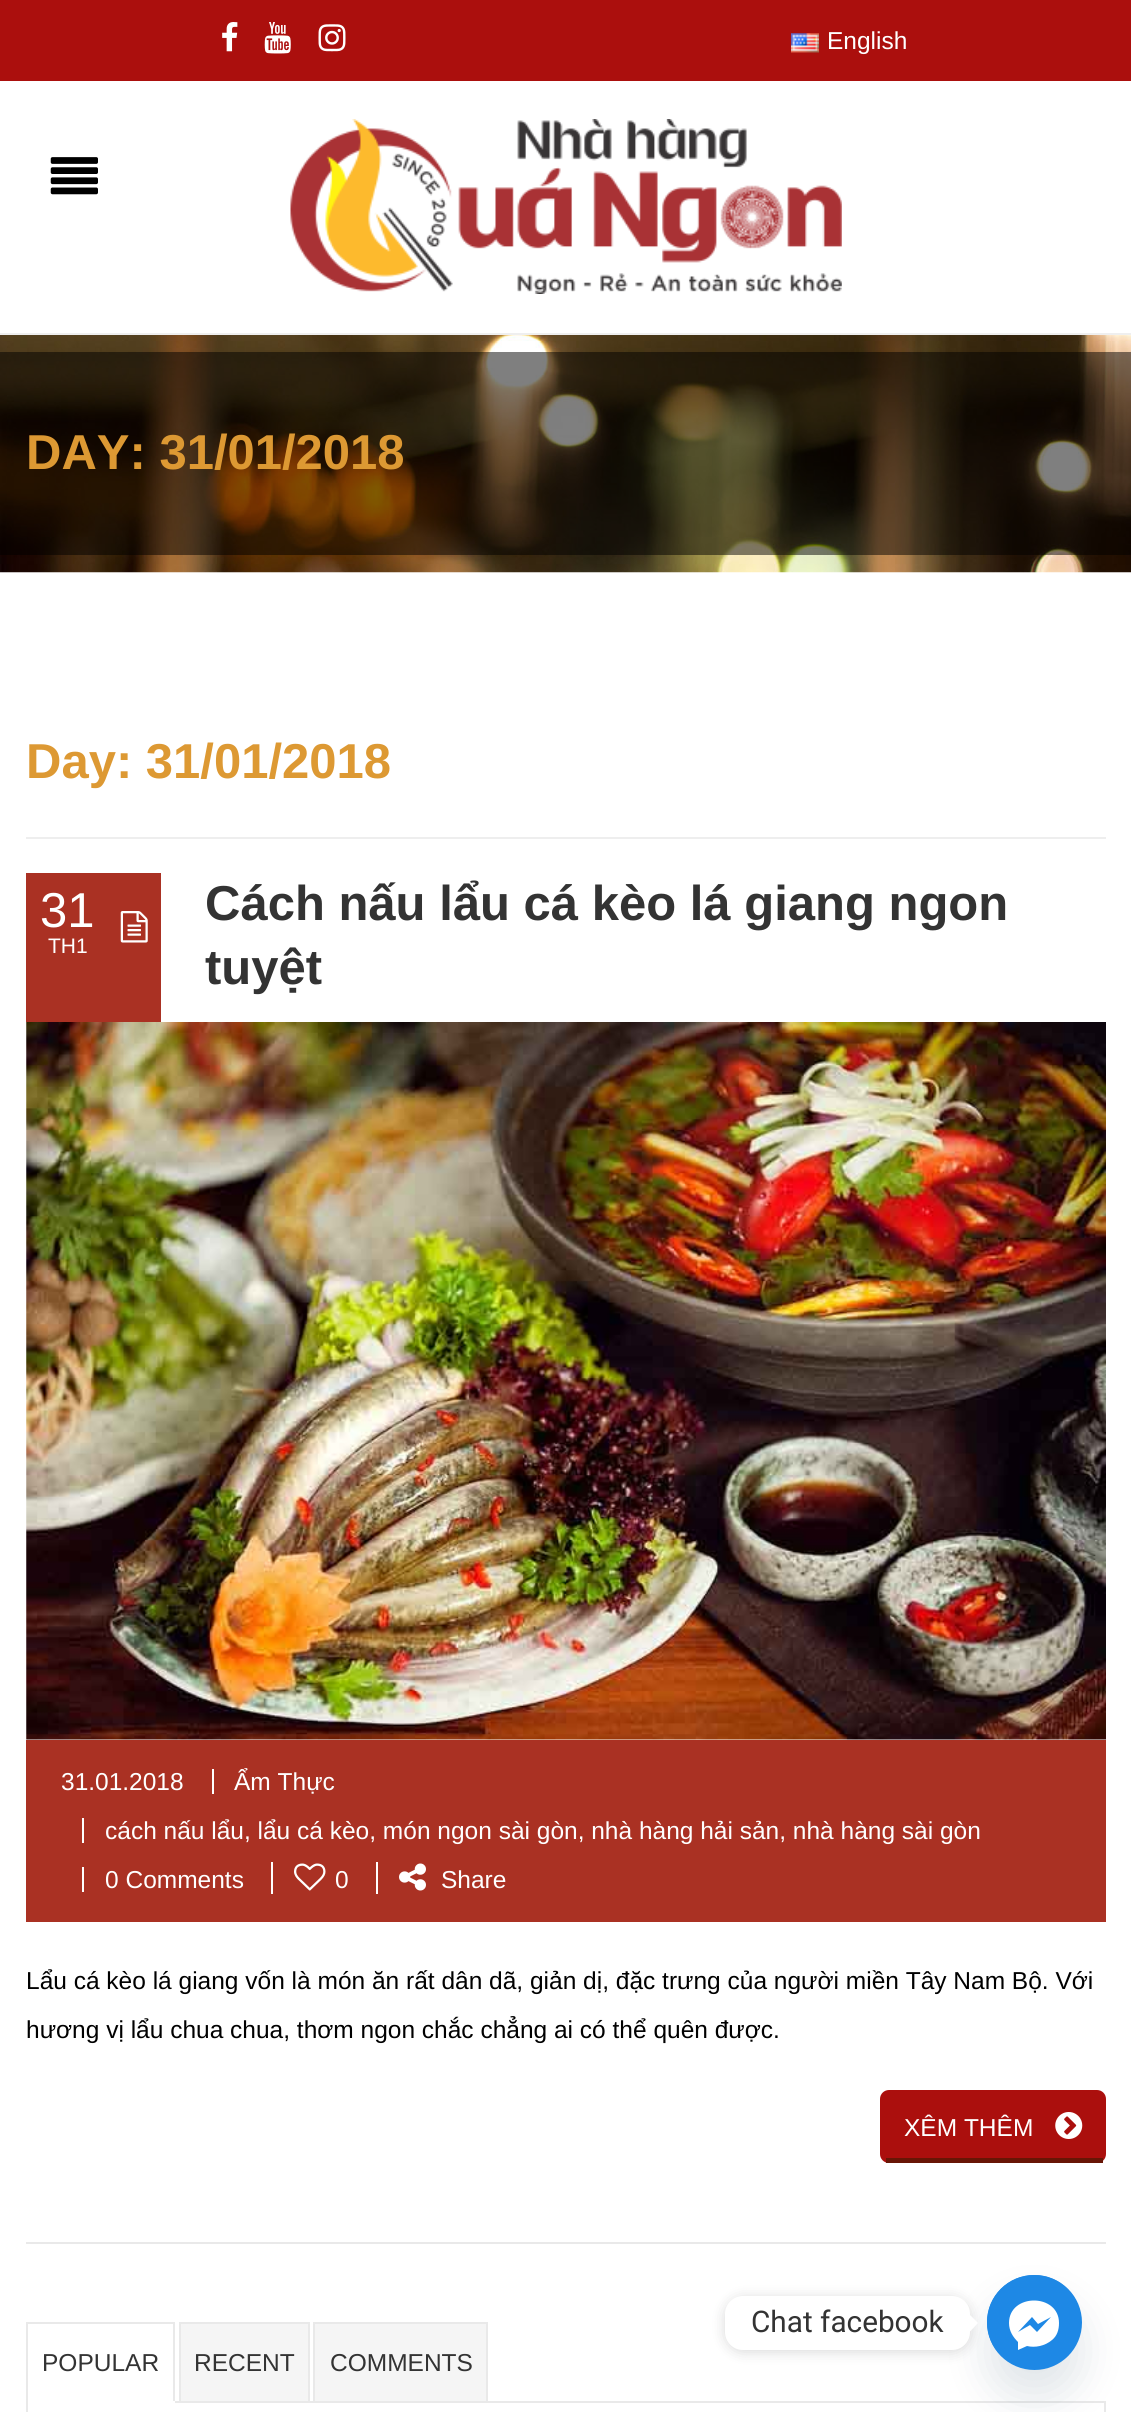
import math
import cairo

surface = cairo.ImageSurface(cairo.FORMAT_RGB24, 1131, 2412)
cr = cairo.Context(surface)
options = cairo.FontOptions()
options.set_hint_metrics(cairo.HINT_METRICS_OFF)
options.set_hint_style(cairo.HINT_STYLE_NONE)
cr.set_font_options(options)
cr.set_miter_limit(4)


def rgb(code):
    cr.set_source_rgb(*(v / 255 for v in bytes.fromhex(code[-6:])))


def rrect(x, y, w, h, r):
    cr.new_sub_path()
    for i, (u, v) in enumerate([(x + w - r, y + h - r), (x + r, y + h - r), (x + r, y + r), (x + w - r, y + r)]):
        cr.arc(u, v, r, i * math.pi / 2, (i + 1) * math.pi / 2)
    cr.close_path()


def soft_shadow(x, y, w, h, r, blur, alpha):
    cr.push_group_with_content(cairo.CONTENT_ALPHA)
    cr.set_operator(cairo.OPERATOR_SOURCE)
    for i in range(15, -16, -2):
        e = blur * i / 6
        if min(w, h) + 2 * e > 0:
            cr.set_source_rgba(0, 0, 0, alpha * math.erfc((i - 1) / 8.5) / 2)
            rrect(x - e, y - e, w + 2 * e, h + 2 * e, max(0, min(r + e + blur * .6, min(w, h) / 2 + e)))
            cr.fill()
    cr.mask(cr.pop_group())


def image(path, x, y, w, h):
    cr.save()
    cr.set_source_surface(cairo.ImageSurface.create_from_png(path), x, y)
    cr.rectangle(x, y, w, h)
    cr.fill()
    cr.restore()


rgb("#ffffff")
cr.paint()
rgb("#ab0f0d")
cr.rectangle(0, 0, 1131, 81)
cr.fill()
image("img/1.png", 222, 22, 16, 30)
image("img/2.png", 264, 22, 27, 32)
image("img/3.png", 318, 24, 28, 28)
image("img/4.png", 791, 33, 28, 20)
rgb("#efefef")
cr.rectangle(0, 333, 1131, 2)
cr.fill()
image("img/5.png", 50, 157, 48, 38)
image("img/6.png", 290, 119, 552, 175)
image("img/7.png", 0, 335, 1131, 238)
cr.set_source_rgba(0, 0, 0, 0.5)
cr.rectangle(0, 352, 1131, 203)
cr.fill()
rgb("#eeeeee")
cr.rectangle(26, 837, 1080, 2)
cr.fill()
rgb("#e9e9e9")
cr.rectangle(26, 2242, 1080, 2)
cr.fill()
rgb("#aa3123")
cr.rectangle(26, 873, 135, 149)
cr.fill()
image("img/8.png", 120, 911, 28, 32)
image("img/9.png", 26, 1022, 1080, 718)
for x, y, w, h, color in [
    (26, 1740, 1080, 182, "#aa3123"),
    (212, 1769, 2, 25, "#ffffff"),
    (82, 1818, 2, 25, "#ffffff"),
    (82, 1867, 2, 25, "#ffffff"),
    (271, 1862, 2, 32, "#ffffff"),
]:
    rgb(color)
    cr.rectangle(x, y, w, h)
    cr.fill()
image("img/10.png", 294, 1863, 32, 28)
cr.rectangle(376, 1862, 2, 32)
cr.fill()
image("img/11.png", 399, 1863, 27, 28)
rgb("#ab0f0d")
rrect(880, 2090, 226, 73, 9)
cr.fill()
rgb("#681606")
cr.rectangle(886, 2158, 217, 5)
cr.fill()
image("img/12.png", 1055, 2112, 28, 27)
rgb("#e9e9e9")
cr.rectangle(26, 2322, 149, 2)
cr.fill()
cr.rectangle(27, 2402, 1078, 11)
cr.stroke()
for x, y, w, h, color in [
    (173, 2322, 2, 81, "#e9e9e9"),
    (26, 2401, 149, 2, "#ffffff"),
    (26, 2322, 2, 81, "#e9e9e9"),
]:
    rgb(color)
    cr.rectangle(x, y, w, h)
    cr.fill()
rgb("#f5f5f5")
cr.rectangle(180, 2323, 129, 79)
cr.fill_preserve()
rgb("#e9e9e9")
cr.stroke()
rgb("#f5f5f5")
cr.rectangle(314, 2323, 173, 79)
cr.fill_preserve()
rgb("#e9e9e9")
cr.stroke()
rgb("#49687e")
soft_shadow(987, 2303, 95, 95, 47.5, 21, 0.16)
rgb("#1e88e5")
cr.arc(1034.5, 2322.5, 47.5, 0, 2 * math.pi)
cr.fill()
cr.arc(1034, 2322, 47, 0, 2 * math.pi)
cr.fill()
rgb("#000000")
soft_shadow(725, 2298, 245, 54, 18, 7, 0.15)
rgb("#ffffff")
rrect(725, 2296, 245, 54, 18)
cr.fill()
cr.new_path()
cr.move_to(969.5, 2332)
cr.line_to(969.5, 2314.5)
cr.line_to(978, 2323)
cr.close_path()
cr.fill()
cr.set_fill_rule(cairo.FILL_RULE_EVEN_ODD)
cr.new_path()
cr.move_to(1009, 2323)
cr.curve_to(1009, 2293, 1059, 2293, 1059, 2323)
cr.curve_to(1059, 2330, 1057, 2336, 1052, 2340)
cr.curve_to(1045, 2346, 1035, 2348, 1027, 2346)
cr.line_to(1018, 2350)
cr.line_to(1018, 2342)
cr.curve_to(1013, 2337, 1009, 2331, 1009, 2323)
cr.close_path()
cr.move_to(1030, 2325)
cr.line_to(1037, 2332)
cr.line_to(1051, 2317)
cr.line_to(1038, 2324)
cr.line_to(1032, 2317)
cr.line_to(1018, 2332)
cr.close_path()
cr.fill()
cr.select_font_face("Liberation Sans")
cr.set_font_size(24.5)
cr.move_to(827, 49)
cr.show_text("English")
cr.select_font_face("Liberation Sans", cairo.FONT_SLANT_NORMAL, cairo.FONT_WEIGHT_BOLD)
cr.set_font_size(49)
rgb("#dd9933")
cr.move_to(26, 469)
cr.show_text("DAY: 31/01/2018")
cr.move_to(26, 778)
cr.show_text("Day: 31/01/2018")
cr.select_font_face("Liberation Sans")
rgb("#ffffff")
cr.move_to(40, 927)
cr.show_text("31")
cr.set_font_size(21)
cr.move_to(48, 953)
cr.show_text("TH1")
cr.select_font_face("Liberation Sans", cairo.FONT_SLANT_NORMAL, cairo.FONT_WEIGHT_BOLD)
cr.set_font_size(49)
rgb("#333333")
cr.move_to(205, 920)
cr.show_text("Cách nấu lẩu cá kèo lá giang ngon")
cr.move_to(205, 984)
cr.show_text("tuyệt")
cr.select_font_face("Liberation Sans")
cr.set_font_size(24.5)
rgb("#ffffff")
for x, y, s in [
    (61, 1790, "31.01.2018"),
    (234, 1790, "Ẩm Thực"),
    (105, 1839, "cách nấu lẩu, lẩu cá kèo, món ngon sài gòn, nhà hàng hải sản, nhà hàng sài gòn"),
    (105, 1888, "0 Comments"),
    (335, 1888, "0"),
    (441, 1888, "Share"),
]:
    cr.move_to(x, y)
    cr.show_text(s)
rgb("#000000")
cr.move_to(26, 1989)
cr.show_text("Lẩu cá kèo lá giang vốn là món ăn rất dân dã, giản dị, đặc trưng của người miền Tây Nam Bộ. Với")
cr.move_to(26, 2038)
cr.show_text("hương vị lẩu chua chua, thơm ngon chắc chẳng ai có thể quên được.")
rgb("#ffffff")
cr.move_to(904, 2136)
cr.show_text("XÊM THÊM")
rgb("#333333")
for x, y, s in [
    (42, 2371, "POPULAR"),
    (194, 2371, "RECENT"),
    (330, 2371, "COMMENTS"),
]:
    cr.move_to(x, y)
    cr.show_text(s)
cr.select_font_face("Roboto")
cr.set_font_size(29.75)
cr.move_to(751, 2332)
cr.show_text("Chat facebook")
surface.write_to_png("page.png")
